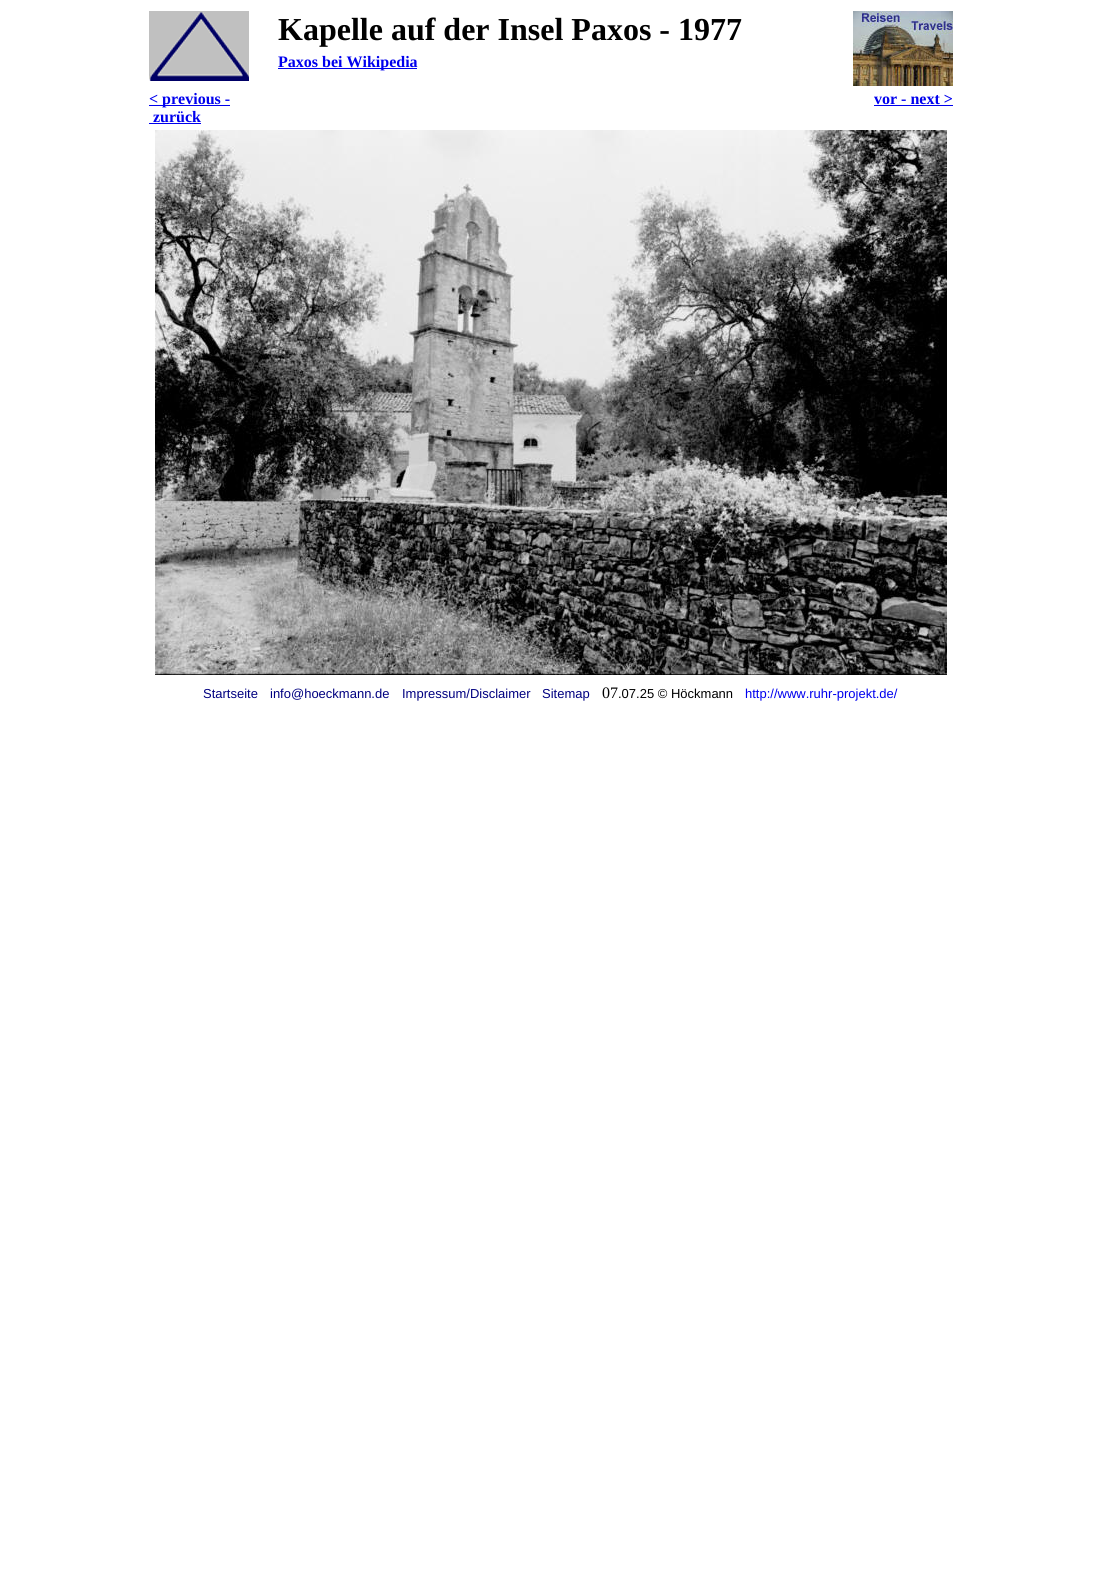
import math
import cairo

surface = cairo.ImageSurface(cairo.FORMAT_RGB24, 1101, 1574)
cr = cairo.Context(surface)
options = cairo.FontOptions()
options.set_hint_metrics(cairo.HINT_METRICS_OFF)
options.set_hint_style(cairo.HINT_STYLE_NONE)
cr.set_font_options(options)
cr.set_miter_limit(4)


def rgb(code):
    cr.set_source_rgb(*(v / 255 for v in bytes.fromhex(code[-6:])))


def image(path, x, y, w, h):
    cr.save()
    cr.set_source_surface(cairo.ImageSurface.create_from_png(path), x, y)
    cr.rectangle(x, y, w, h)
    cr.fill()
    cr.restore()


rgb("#ffffff")
cr.paint()
image("img/1.png", 149, 11, 100, 70)
rgb("#0000ee")
cr.rectangle(278, 68, 139, 1)
cr.fill()
image("img/2.png", 853, 11, 100, 75)
for x, y, w, h, color in [
    (149, 105, 81, 1, "#0000ee"),
    (149, 123, 52, 1, "#0000ee"),
    (874, 105, 79, 1, "#0000ee"),
]:
    rgb(color)
    cr.rectangle(x, y, w, h)
    cr.fill()
image("img/3.png", 155, 130, 792, 545)
cr.select_font_face("Liberation Serif", cairo.FONT_SLANT_NORMAL, cairo.FONT_WEIGHT_BOLD)
cr.set_font_size(32)
rgb("#000000")
cr.move_to(278, 40)
cr.show_text("Kapelle auf der Insel Paxos - 1977")
cr.set_font_size(16)
rgb("#0000ee")
for x, y, s in [
    (278, 67, "Paxos bei Wikipedia"),
    (149, 104, "< previous -"),
    (153, 122, "zurück"),
    (874, 104, "vor - next >"),
]:
    cr.move_to(x, y)
    cr.show_text(s)
cr.select_font_face("Liberation Sans")
cr.set_font_size(13)
rgb("#000080")
for x, y, s in [
    (203, 698, "Startseite"),
    (270, 698, "info@hoeckmann.de"),
    (402, 698, "Impressum/Disclaimer"),
    (542, 698, "Sitemap"),
]:
    cr.move_to(x, y)
    cr.show_text(s)
cr.select_font_face("Liberation Serif")
cr.set_font_size(16)
rgb("#000000")
cr.move_to(602, 698)
cr.show_text("07")
cr.select_font_face("Liberation Sans")
cr.set_font_size(13)
cr.move_to(618, 698)
cr.show_text(".07.25 © Höckmann")
rgb("#0000ee")
cr.move_to(745, 698)
cr.show_text("http://www.ruhr-projekt.de/")
surface.write_to_png("page.png")
